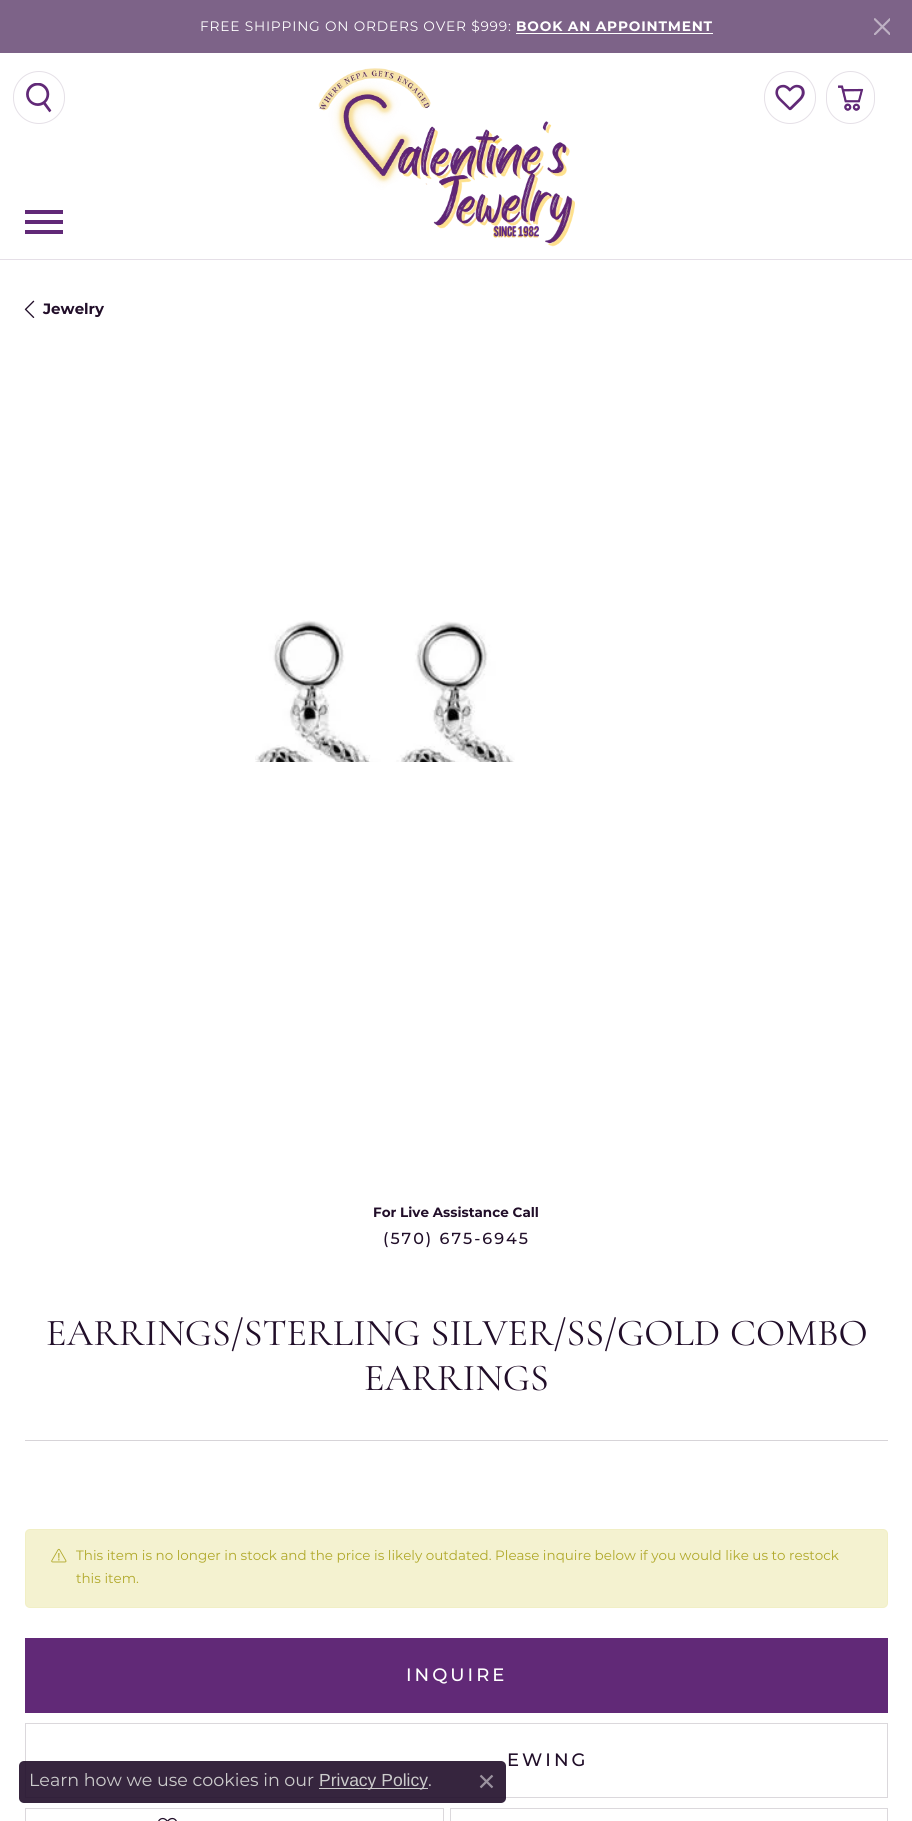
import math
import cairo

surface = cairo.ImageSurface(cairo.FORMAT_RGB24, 912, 1821)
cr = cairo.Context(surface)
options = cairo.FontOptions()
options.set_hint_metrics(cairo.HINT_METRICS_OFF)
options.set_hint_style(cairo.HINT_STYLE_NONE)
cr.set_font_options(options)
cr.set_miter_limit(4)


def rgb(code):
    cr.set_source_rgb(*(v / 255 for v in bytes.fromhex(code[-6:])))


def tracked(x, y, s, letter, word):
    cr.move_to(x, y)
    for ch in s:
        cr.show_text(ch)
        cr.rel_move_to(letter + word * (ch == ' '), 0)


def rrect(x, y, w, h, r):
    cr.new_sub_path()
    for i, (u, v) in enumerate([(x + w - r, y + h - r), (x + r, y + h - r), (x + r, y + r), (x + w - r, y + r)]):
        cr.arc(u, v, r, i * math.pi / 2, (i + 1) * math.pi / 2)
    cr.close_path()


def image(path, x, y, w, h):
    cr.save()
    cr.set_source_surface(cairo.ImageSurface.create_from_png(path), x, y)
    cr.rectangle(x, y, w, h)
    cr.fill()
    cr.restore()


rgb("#7d6388")
cr.paint()
rgb("#ffffff")
cr.rectangle(516, 33, 197, 1)
cr.fill()
image("img/1.png", 874, 18, 16, 17)
cr.rectangle(0, 259, 912, 1562)
cr.fill()
cr.rectangle(-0.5, 51.5, 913, 208)
cr.set_source_rgba(0.49, 0.388, 0.533, 0.2)
cr.set_line_width(1)
cr.stroke()
rgb("#ffffff")
cr.rectangle(0, 53, 912, 206)
cr.fill()
image("img/2.png", 318, 68, 257, 179)
rrect(13.5, 71.5, 51, 52, 25.5)
rgb("#e5e0e7")
cr.stroke()
image("img/3.png", 26, 83, 26, 30)
rrect(764.5, 71.5, 51, 52, 25.5)
cr.stroke()
image("img/4.png", 775, 84, 30, 27)
rrect(826.5, 71.5, 48, 52, 24)
cr.stroke()
image("img/5.png", 838, 85, 26, 26)
for x, y, w, h, color in [
    (25, 210, 38, 4, "#612977"),
    (25, 220, 38, 4, "#612977"),
    (25, 230, 38, 4, "#612977"),
]:
    rgb(color)
    cr.rectangle(x, y, w, h)
    cr.fill()
image("img/6.png", 24, 300, 11, 18)
image("img/7.png", 255, 620, 260, 142)
rgb("#d7d4d8")
cr.rectangle(25, 1440, 863, 1)
cr.fill()
rgb("#f4f2d0")
rrect(25, 1529, 863, 79, 5)
cr.fill()
rrect(25.5, 1529.5, 862, 78, 4.5)
cr.set_source_rgba(0.859, 0.831, 0.388, 0.1)
cr.stroke()
image("img/8.png", 51, 1548, 16, 15)
rgb("#612977")
cr.rectangle(25, 1638, 863, 75)
cr.fill()
cr.rectangle(25.5, 1723.5, 862, 74)
rgb("#dbd8dc")
cr.stroke()
cr.rectangle(25.5, 1808.5, 418, 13)
cr.stroke()
image("img/9.png", 158, 1817, 19, 4)
cr.rectangle(450.5, 1808.5, 437, 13)
cr.stroke()
cr.set_source_rgba(0.129, 0.055, 0.161, 0.9)
rrect(19, 1761, 487, 42, 5)
cr.fill()
rgb("#cccccc")
cr.rectangle(319, 1788, 109, 1)
cr.fill()
image("img/10.png", 479, 1774, 15, 15)
cr.select_font_face("Montserrat")
cr.set_font_size(13.75)
rgb("#ffffff")
tracked(200, 31, "FREE SHIPPING ON ORDERS OVER $999:", 0.8, 0)
cr.select_font_face("Montserrat", cairo.FONT_SLANT_NORMAL, cairo.FONT_WEIGHT_BOLD)
tracked(516, 31, "BOOK AN APPOINTMENT", 0.8, 0)
cr.set_font_size(15)
rgb("#210e29")
cr.move_to(43, 314)
cr.show_text("Jewelry")
cr.set_font_size(13.5)
cr.move_to(373, 1217)
cr.show_text("For Live Assistance Call")
cr.select_font_face("Montserrat Medium")
cr.set_font_size(16)
tracked(383, 1244, "(570) 675-6945", 2, 0)
cr.select_font_face("Cormorant Garamond")
cr.set_font_size(38.1)
tracked(46, 1345, "EARRINGS/STERLING SILVER/SS/GOLD COMBO", 0, 1)
cr.move_to(364, 1390)
cr.show_text("EARRINGS")
cr.select_font_face("Montserrat")
cr.set_font_size(13.5)
rgb("#b0a829")
cr.move_to(76, 1560)
cr.show_text("This item is no longer in stock and the price is likely outdated. Please inquire below if you would like us to restock")
cr.move_to(76, 1583)
cr.show_text("this item.")
cr.select_font_face("Montserrat Medium")
cr.set_font_size(18)
rgb("#ffffff")
tracked(406, 1681, "INQUIRE", 3, 0)
rgb("#210e29")
tracked(507, 1766, "EWING", 3, 0)
cr.select_font_face("Montserrat")
cr.set_font_size(17.5)
rgb("#cccccc")
cr.move_to(29, 1786)
cr.show_text("Learn how we use cookies in our")
cr.select_font_face("Liberation Sans")
cr.move_to(319, 1786)
cr.show_text("Privacy Policy")
cr.select_font_face("Montserrat")
cr.move_to(428, 1786)
cr.show_text(".")
surface.write_to_png("page.png")
